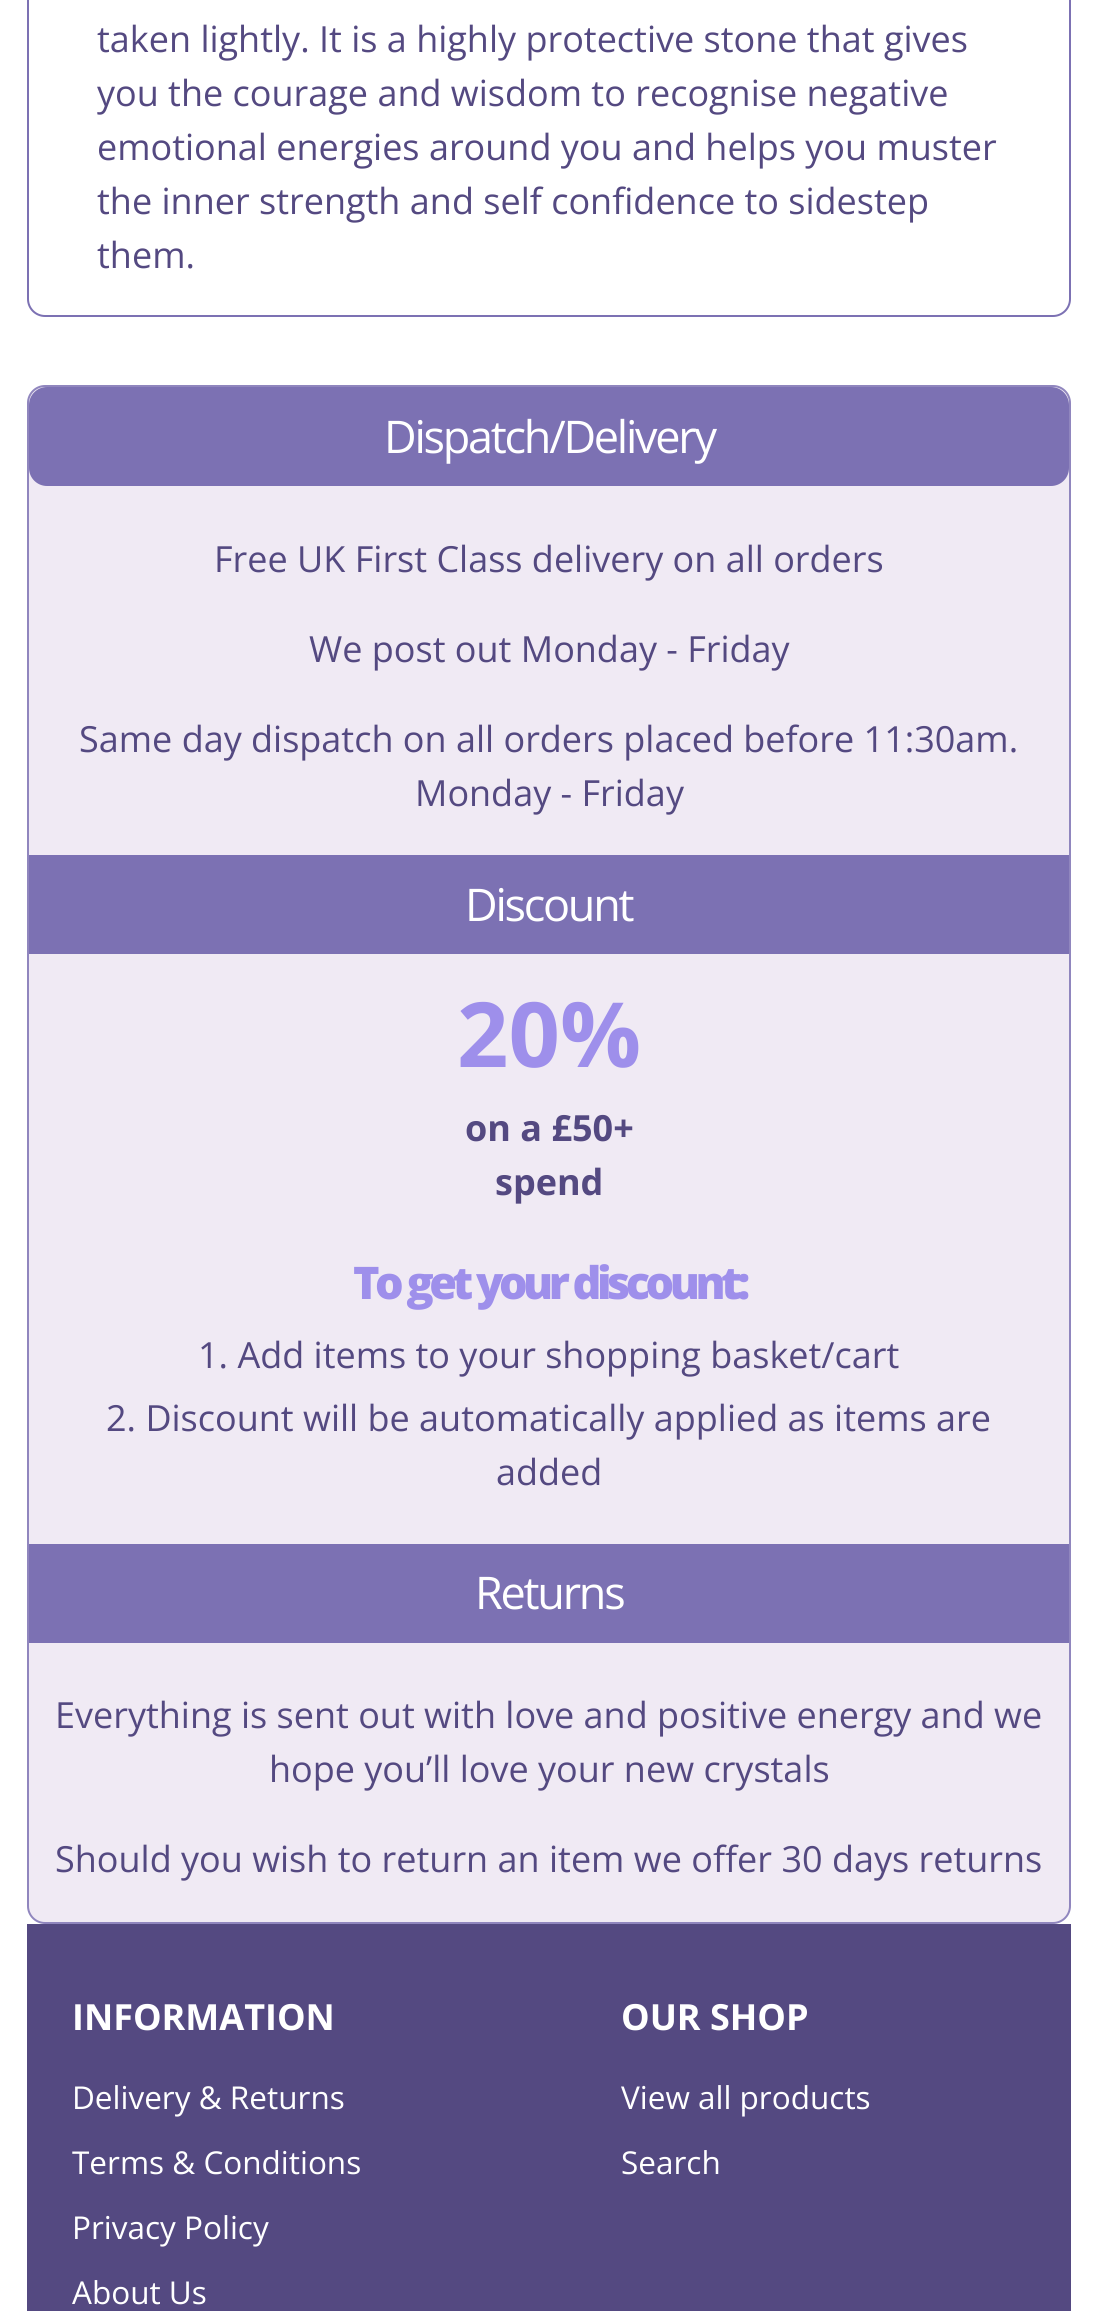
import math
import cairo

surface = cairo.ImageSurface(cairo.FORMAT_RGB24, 1097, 2311)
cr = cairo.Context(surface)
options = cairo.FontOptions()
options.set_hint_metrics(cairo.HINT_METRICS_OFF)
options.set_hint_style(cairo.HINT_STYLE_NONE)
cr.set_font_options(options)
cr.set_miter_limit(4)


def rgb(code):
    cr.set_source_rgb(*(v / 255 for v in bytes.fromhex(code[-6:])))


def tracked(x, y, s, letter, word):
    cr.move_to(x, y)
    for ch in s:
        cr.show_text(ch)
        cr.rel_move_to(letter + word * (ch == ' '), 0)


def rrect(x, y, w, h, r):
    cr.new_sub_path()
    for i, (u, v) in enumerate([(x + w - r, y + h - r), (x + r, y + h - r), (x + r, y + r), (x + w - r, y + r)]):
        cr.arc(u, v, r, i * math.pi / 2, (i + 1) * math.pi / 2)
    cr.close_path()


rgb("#ffffff")
cr.paint()
rrect(28, -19, 1042, 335, 17)
rgb("#7c71b3")
cr.stroke()
rgb("#f0eaf4")
rrect(28, 386, 1042, 1537, 17)
cr.fill_preserve()
rgb("#9086be")
cr.stroke()
rgb("#7c71b3")
rrect(29, 387, 1040, 99, 18)
cr.fill()
for x, y, w, h, color in [
    (29, 855, 1040, 99, "#7c71b3"),
    (29, 1544, 1040, 99, "#7c71b3"),
    (27, 1924, 1044, 387, "#544981"),
]:
    rgb(color)
    cr.rectangle(x, y, w, h)
    cr.fill()
cr.select_font_face("Open Sans")
cr.set_font_size(36)
for x, y, s in [
    (97, 52, "taken lightly. It is a highly protective stone that gives"),
    (97, 106, "you the courage and wisdom to recognise negative"),
    (97, 160, "emotional energies around you and helps you muster"),
    (97, 214, "the inner strength and self confidence to sidestep"),
    (97, 268, "them."),
]:
    cr.move_to(x, y)
    cr.show_text(s)
cr.set_font_size(45)
rgb("#ffffff")
tracked(384, 453, "Dispatch/Delivery", -2.25, 0)
cr.set_font_size(36)
rgb("#544981")
for x, y, s in [
    (214, 572, "Free UK First Class delivery on all orders"),
    (309, 662, "We post out Monday - Friday"),
    (79, 752, "Same day dispatch on all orders placed before 11:30am."),
    (415, 806, "Monday - Friday"),
]:
    cr.move_to(x, y)
    cr.show_text(s)
cr.set_font_size(45)
rgb("#ffffff")
tracked(465, 921, "Discount", -2.25, 0)
cr.select_font_face("Open Sans", cairo.FONT_SLANT_NORMAL, cairo.FONT_WEIGHT_BOLD)
cr.set_font_size(90)
rgb("#9e8feb")
cr.move_to(457, 1067)
cr.show_text("20%")
cr.set_font_size(36)
rgb("#544981")
cr.move_to(465, 1141)
cr.show_text("on a £50+")
cr.move_to(495, 1195)
cr.show_text("spend")
cr.select_font_face("Open Sans ExtraBold")
cr.set_font_size(45)
rgb("#9e8feb")
tracked(353, 1299, "To get your discount:", -4.5, 0)
cr.select_font_face("Open Sans")
cr.set_font_size(36)
rgb("#544981")
for x, y, s in [
    (198, 1368, "1. Add items to your shopping basket/cart"),
    (106, 1431, "2. Discount will be automatically applied as items are"),
    (496, 1485, "added"),
]:
    cr.move_to(x, y)
    cr.show_text(s)
cr.set_font_size(45)
rgb("#ffffff")
tracked(475, 1609, "Returns", -2.25, 0)
cr.set_font_size(36)
rgb("#544981")
for x, y, s in [
    (55, 1728, "Everything is sent out with love and positive energy and we"),
    (269, 1782, "hope you’ll love your new crystals"),
    (55, 1872, "Should you wish to return an item we offer 30 days returns"),
]:
    cr.move_to(x, y)
    cr.show_text(s)
cr.select_font_face("Open Sans", cairo.FONT_SLANT_NORMAL, cairo.FONT_WEIGHT_BOLD)
rgb("#ffffff")
cr.move_to(72, 2030)
cr.show_text("INFORMATION")
cr.select_font_face("Open Sans")
cr.set_font_size(31.5)
for x, y, s in [
    (72, 2109, "Delivery & Returns"),
    (72, 2174, "Terms & Conditions"),
    (72, 2239, "Privacy Policy"),
    (72, 2304, "About Us"),
]:
    cr.move_to(x, y)
    cr.show_text(s)
cr.select_font_face("Open Sans", cairo.FONT_SLANT_NORMAL, cairo.FONT_WEIGHT_BOLD)
cr.set_font_size(36)
cr.move_to(621, 2030)
cr.show_text("OUR SHOP")
cr.select_font_face("Open Sans")
cr.set_font_size(31.5)
cr.move_to(621, 2109)
cr.show_text("View all products")
cr.move_to(621, 2174)
cr.show_text("Search")
surface.write_to_png("page.png")
